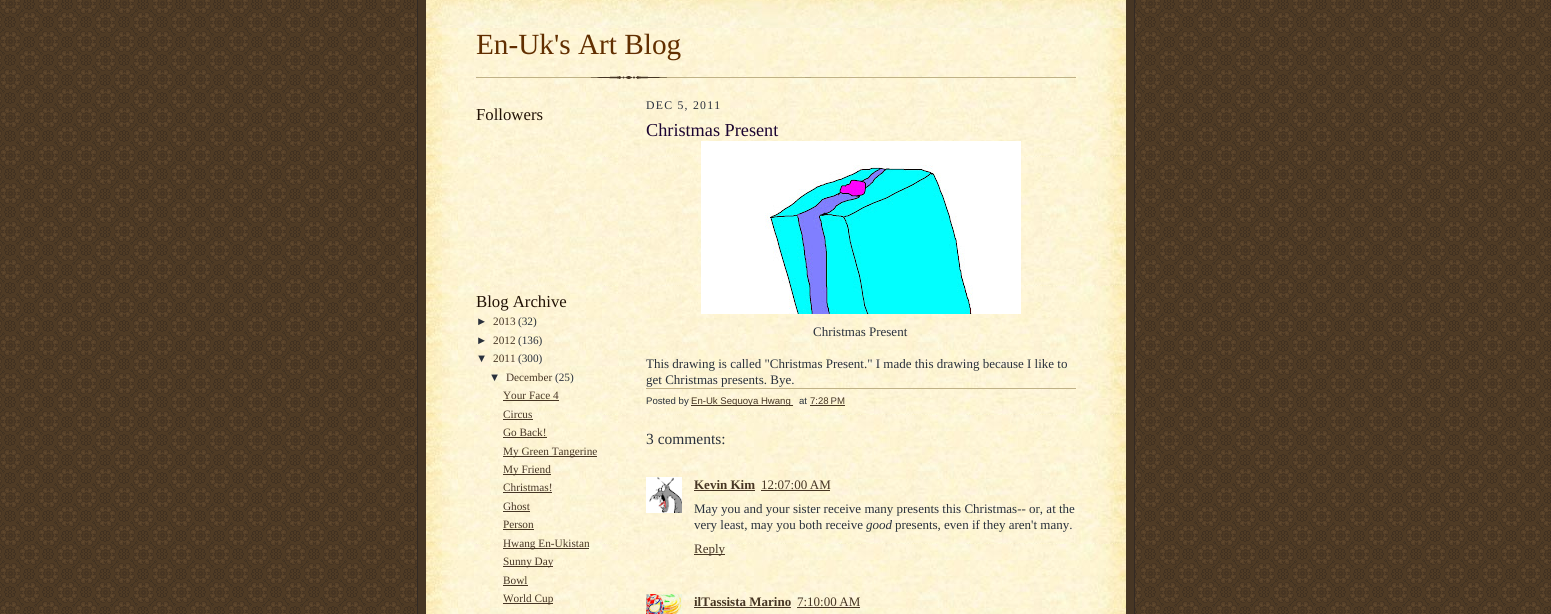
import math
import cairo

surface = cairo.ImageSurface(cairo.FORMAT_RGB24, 1551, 614)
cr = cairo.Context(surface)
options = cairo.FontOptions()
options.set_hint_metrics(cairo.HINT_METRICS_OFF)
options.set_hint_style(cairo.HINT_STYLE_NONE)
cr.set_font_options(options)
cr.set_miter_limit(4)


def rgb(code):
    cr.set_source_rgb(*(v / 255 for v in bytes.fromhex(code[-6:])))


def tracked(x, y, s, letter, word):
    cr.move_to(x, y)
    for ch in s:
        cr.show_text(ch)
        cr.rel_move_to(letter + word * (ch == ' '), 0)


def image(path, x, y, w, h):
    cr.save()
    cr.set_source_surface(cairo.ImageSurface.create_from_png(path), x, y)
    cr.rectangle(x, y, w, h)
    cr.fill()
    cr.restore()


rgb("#ffffff")
cr.paint()
image("img/1.png", 0, 0, 1551, 614)
for x, y, w, h, color in [
    (418, 0, 716, 614, "#473624"),
    (1134, 0, 1, 614, "#332a24"),
    (417, 0, 1, 614, "#332a24"),
]:
    rgb(color)
    cr.rectangle(x, y, w, h)
    cr.fill()
image("img/2.png", 426, 0, 700, 28)
image("img/3.png", 426, 28, 700, 586)
image("img/4.png", 476, 76, 600, 3)
for x, y, w, h, color in [
    (503, 400, 56, 1, "#473624"),
    (503, 419, 30, 1, "#473624"),
    (503, 437, 44, 1, "#473624"),
    (503, 456, 94, 1, "#473624"),
    (503, 474, 48, 1, "#473624"),
    (503, 492, 49, 1, "#473624"),
    (503, 511, 27, 1, "#473624"),
    (503, 529, 31, 1, "#473624"),
    (503, 548, 86, 1, "#473624"),
    (503, 566, 50, 1, "#473624"),
    (503, 585, 25, 1, "#473624"),
    (503, 603, 50, 1, "#473624"),
]:
    rgb(color)
    cr.rectangle(x, y, w, h)
    cr.fill()
image("img/5.png", 701, 141, 320, 173)
for x, y, w, h, color in [
    (646, 388, 430, 1, "#bfb186"),
    (691, 405, 102, 1, "#473624"),
    (810, 405, 35, 1, "#473624"),
]:
    rgb(color)
    cr.rectangle(x, y, w, h)
    cr.fill()
image("img/6.png", 646, 477, 36, 36)
for x, y, w, h, color in [
    (694, 490, 61, 1, "#473624"),
    (761, 490, 69, 1, "#473624"),
    (694, 554, 31, 1, "#473624"),
]:
    rgb(color)
    cr.rectangle(x, y, w, h)
    cr.fill()
image("img/7.png", 646, 594, 36, 20)
cr.rectangle(694, 607, 97, 1)
cr.fill()
cr.rectangle(797, 607, 63, 1)
cr.fill()
cr.select_font_face("Liberation Serif")
cr.set_font_size(29.25)
rgb("#612e00")
cr.move_to(476, 54)
cr.show_text("En-Uk's Art Blog")
cr.set_font_size(16.75)
rgb("#211104")
cr.move_to(476, 120)
cr.show_text("Followers")
cr.move_to(476, 307)
cr.show_text("Blog Archive")
cr.select_font_face("Liberation Sans")
cr.set_font_size(11.25)
rgb("#29303b")
cr.move_to(476, 325)
cr.show_text("►")
cr.select_font_face("Liberation Serif")
rgb("#473624")
cr.move_to(493, 325)
cr.show_text("2013")
rgb("#29303b")
cr.move_to(518, 325)
cr.show_text("(32)")
cr.select_font_face("Liberation Sans")
cr.move_to(476, 344)
cr.show_text("►")
cr.select_font_face("Liberation Serif")
rgb("#473624")
cr.move_to(493, 344)
cr.show_text("2012")
rgb("#29303b")
cr.move_to(518, 344)
cr.show_text("(136)")
cr.select_font_face("Liberation Sans")
cr.move_to(476, 362)
cr.show_text("▼")
cr.select_font_face("Liberation Serif")
rgb("#473624")
cr.move_to(493, 362)
cr.show_text("2011")
rgb("#29303b")
cr.move_to(518, 362)
cr.show_text("(300)")
cr.select_font_face("Liberation Sans")
cr.move_to(489, 381)
cr.show_text("▼")
cr.select_font_face("Liberation Serif")
rgb("#473624")
cr.move_to(506, 381)
cr.show_text("December")
rgb("#29303b")
cr.move_to(555, 381)
cr.show_text("(25)")
rgb("#473624")
for x, y, s in [
    (503, 399, "Your Face 4"),
    (503, 418, "Circus"),
    (503, 436, "Go Back!"),
    (503, 455, "My Green Tangerine"),
    (503, 473, "My Friend"),
    (503, 491, "Christmas!"),
    (503, 510, "Ghost"),
    (503, 528, "Person"),
    (503, 547, "Hwang En-Ukistan"),
    (503, 565, "Sunny Day"),
    (503, 584, "Bowl"),
    (503, 602, "World Cup"),
]:
    cr.move_to(x, y)
    cr.show_text(s)
cr.set_font_size(11.75)
rgb("#29303b")
tracked(646, 109, "DEC 5, 2011", 1.25, 0)
cr.set_font_size(18.25)
rgb("#1b0431")
cr.move_to(646, 136)
cr.show_text("Christmas Present")
cr.set_font_size(13)
rgb("#29303b")
cr.move_to(813, 336)
cr.show_text("Christmas Present")
cr.save()
cr.rectangle(646, 91, 430, 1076)
cr.clip()
cr.move_to(646, 368)
cr.show_text("This drawing is called \"Christmas Present.\" I made this drawing because I like to")
cr.restore()
cr.move_to(646, 384)
cr.show_text("get Christmas presents. Bye.")
cr.select_font_face("Liberation Sans")
cr.set_font_size(9.6)
cr.move_to(646, 404)
cr.show_text("Posted by")
rgb("#473624")
cr.move_to(691, 404)
cr.show_text("En-Uk Sequoya Hwang")
rgb("#29303b")
cr.move_to(799, 404)
cr.show_text("at")
rgb("#473624")
cr.move_to(810, 404)
cr.show_text("7:28 PM")
cr.select_font_face("Liberation Serif")
cr.set_font_size(15.5)
rgb("#29303b")
cr.move_to(646, 444)
cr.show_text("3 comments:")
cr.select_font_face("Liberation Serif", cairo.FONT_SLANT_NORMAL, cairo.FONT_WEIGHT_BOLD)
cr.set_font_size(13)
rgb("#473624")
cr.move_to(694, 489)
cr.show_text("Kevin Kim")
cr.select_font_face("Liberation Serif")
cr.move_to(761, 489)
cr.show_text("12:07:00 AM")
rgb("#29303b")
cr.move_to(694, 513)
cr.show_text("May you and your sister receive many presents this Christmas-- or, at the")
cr.move_to(694, 529)
cr.show_text("very least, may you both receive")
cr.select_font_face("Liberation Serif", cairo.FONT_SLANT_ITALIC)
cr.move_to(866, 529)
cr.show_text("good")
cr.select_font_face("Liberation Serif")
cr.move_to(895, 529)
cr.show_text("presents, even if they aren't many.")
rgb("#473624")
cr.move_to(694, 553)
cr.show_text("Reply")
cr.select_font_face("Liberation Serif", cairo.FONT_SLANT_NORMAL, cairo.FONT_WEIGHT_BOLD)
cr.move_to(694, 606)
cr.show_text("ilTassista Marino")
cr.select_font_face("Liberation Serif")
cr.move_to(797, 606)
cr.show_text("7:10:00 AM")
surface.write_to_png("page.png")
